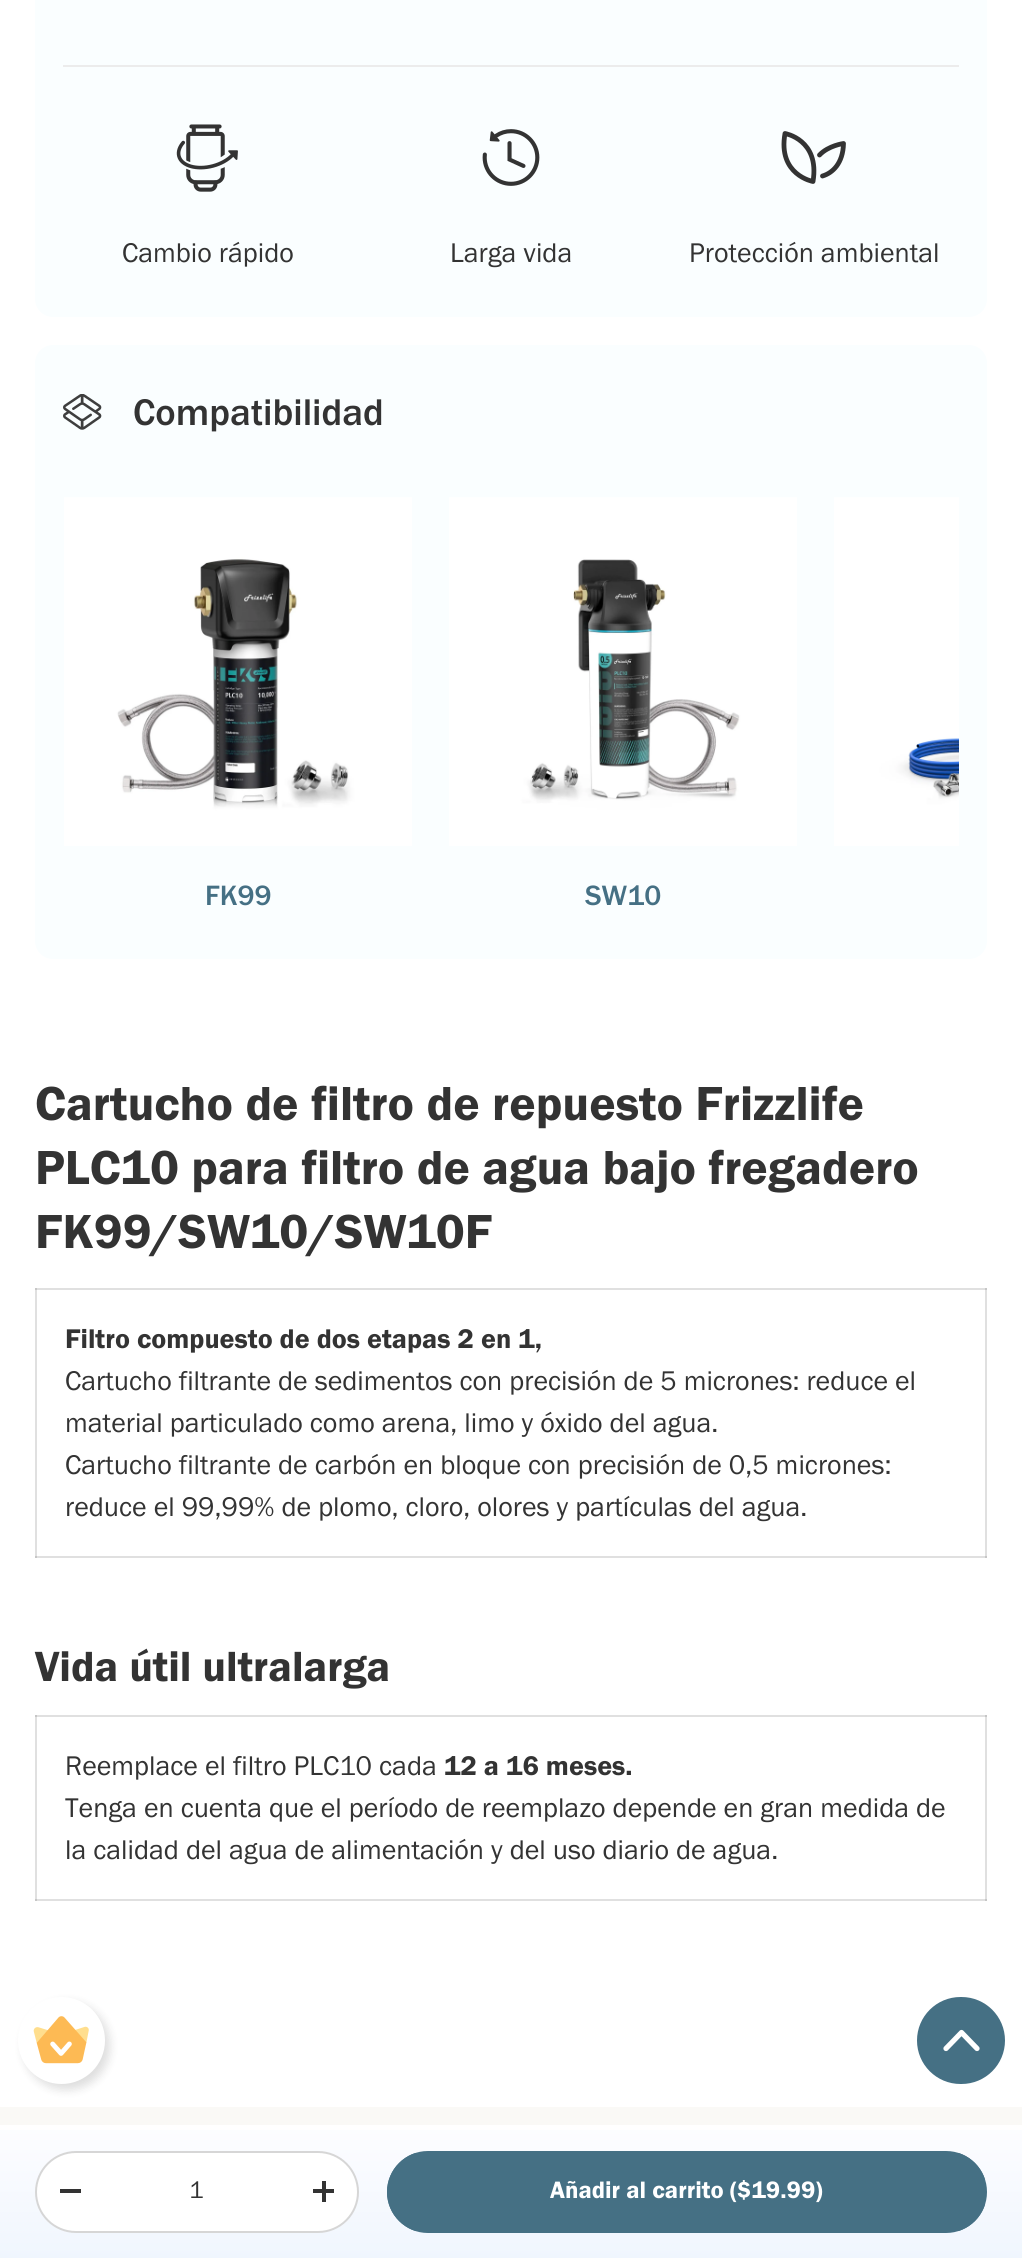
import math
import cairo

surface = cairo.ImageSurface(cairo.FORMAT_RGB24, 1022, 2258)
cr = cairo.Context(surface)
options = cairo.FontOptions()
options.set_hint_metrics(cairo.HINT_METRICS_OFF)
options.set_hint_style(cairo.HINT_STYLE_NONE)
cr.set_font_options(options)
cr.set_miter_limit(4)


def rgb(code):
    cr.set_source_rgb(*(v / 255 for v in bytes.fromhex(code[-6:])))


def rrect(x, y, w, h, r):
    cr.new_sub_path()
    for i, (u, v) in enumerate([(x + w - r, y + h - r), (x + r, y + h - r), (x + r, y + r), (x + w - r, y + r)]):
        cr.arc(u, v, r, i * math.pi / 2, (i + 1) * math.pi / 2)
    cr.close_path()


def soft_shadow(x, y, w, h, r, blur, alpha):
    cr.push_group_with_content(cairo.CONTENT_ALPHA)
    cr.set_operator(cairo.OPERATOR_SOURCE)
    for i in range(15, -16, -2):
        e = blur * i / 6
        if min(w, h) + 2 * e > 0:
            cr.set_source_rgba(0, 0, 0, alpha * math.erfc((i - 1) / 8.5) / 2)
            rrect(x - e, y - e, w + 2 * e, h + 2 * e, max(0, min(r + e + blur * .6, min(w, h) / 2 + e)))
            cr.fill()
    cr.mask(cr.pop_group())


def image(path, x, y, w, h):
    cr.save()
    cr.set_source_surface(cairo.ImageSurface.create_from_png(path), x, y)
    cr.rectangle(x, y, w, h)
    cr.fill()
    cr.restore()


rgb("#ffffff")
cr.paint()
for x, y, w, h, color in [
    (35, 1715, 2, 186, "#e0e0e0"),
    (35, 1899, 952, 2, "#e0e0e0"),
    (35, 1899, 2, 2, "#c6c6c6"),
    (985, 1715, 2, 186, "#e0e0e0"),
    (985, 1899, 2, 2, "#c6c6c6"),
    (35, 1288, 2, 270, "#e0e0e0"),
    (35, 1556, 952, 2, "#e0e0e0"),
    (35, 1556, 2, 2, "#c6c6c6"),
    (985, 1288, 2, 270, "#e0e0e0"),
    (985, 1556, 2, 2, "#c6c6c6"),
]:
    rgb(color)
    cr.rectangle(x, y, w, h)
    cr.fill()
rgb("#fafeff")
rrect(35, -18, 952, 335, 18)
cr.fill()
rgb("#ececec")
cr.rectangle(63, 65, 896, 2)
cr.fill()
image("img/1.png", 176, 124, 62, 68)
image("img/2.png", 482, 129, 58, 57)
cr.new_path()
cr.move_to(785, 133.5)
cr.curve_to(785, 133.5, 820, 139.5, 813, 181.5)
cr.curve_to(813, 181.5, 777.5, 175, 785, 133.5)
cr.move_to(819.5, 155)
cr.curve_to(828.5, 145.5, 843.5, 143.5, 843.5, 143.5)
cr.curve_to(843, 163.5, 832.5, 173, 822.5, 176)
rgb("#333333")
cr.set_line_width(4.8)
cr.set_line_cap(cairo.LINE_CAP_ROUND)
cr.set_line_join(cairo.LINE_JOIN_ROUND)
cr.stroke()
rgb("#fafeff")
rrect(35, 345, 952, 614, 18)
cr.fill()
image("img/3.png", 63, 394, 39, 36)
image("img/4.png", 834, 497, 125, 349)
image("img/5.png", 64, 497, 348, 349)
image("img/6.png", 449, 497, 348, 349)
for x, y, w, h, color in [
    (35, 1288, 952, 2, "#e0e0e0"),
    (35, 1288, 2, 2, "#c6c6c6"),
    (985, 1288, 2, 2, "#c6c6c6"),
    (35, 1715, 952, 2, "#e0e0e0"),
    (35, 1715, 2, 2, "#c6c6c6"),
    (985, 1715, 2, 2, "#c6c6c6"),
    (0, 2107, 1022, 18, "#faf9f6"),
]:
    rgb(color)
    cr.rectangle(x, y, w, h)
    cr.fill()
gradient = cairo.LinearGradient(511, 2125, 511, 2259)
gradient.add_color_stop_rgba(0, 0.992, 0.992, 1, 1)
gradient.add_color_stop_rgba(1, 0.941, 0.965, 0.996, 1)
cr.set_source(gradient)
cr.rectangle(0, 2130, 1022, 128)
cr.fill()
rgb("#ffffff")
rrect(35, 2151, 324, 82, 41)
cr.fill()
rrect(36, 2152, 322, 80, 40)
cr.set_source_rgba(0.2, 0.2, 0.2, 0.2)
cr.set_line_width(2)
cr.set_line_cap(cairo.LINE_CAP_BUTT)
cr.set_line_join(cairo.LINE_JOIN_MITER)
cr.stroke()
for x, y, w, h, color in [
    (60, 2189, 21, 4, "#333333"),
    (313, 2189, 21, 4, "#333333"),
    (322, 2181, 4, 21, "#333333"),
]:
    rgb(color)
    cr.rectangle(x, y, w, h)
    cr.fill()
cr.save()
rrect(387, 2151, 600, 82, 41)
cr.clip()
gradient = cairo.LinearGradient(-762, 1979, 942, 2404)
gradient.add_color_stop_rgba(0.6, 0.412, 0.553, 0.62, 1)
gradient.add_color_stop_rgba(0.6, 0.271, 0.439, 0.518, 1)
gradient.add_color_stop_rgba(1, 0.271, 0.439, 0.518, 1)
cr.set_source(gradient)
cr.rectangle(387, 2153, 598, 78)
cr.fill()
cr.restore()
rrect(388, 2152, 598, 80, 40)
rgb("#457084")
cr.stroke()
rgb("#000000")
soft_shadow(23, 2002, 87, 88, 43.5, 4.5, 0.13)
rgb("#ffffff")
cr.arc(61.5, 2040.5, 43.5, 0, 2 * math.pi)
cr.fill()
image("img/7.png", 33, 2016, 56, 48)
rgb("#457084")
rrect(917, 1997, 88, 87, 43.5)
cr.fill()
cr.new_path()
cr.move_to(946, 2048.5)
cr.line_to(961.5, 2032.5)
cr.line_to(977, 2048.5)
rgb("#ffffff")
cr.set_line_width(5.2)
cr.set_line_cap(cairo.LINE_CAP_ROUND)
cr.set_line_join(cairo.LINE_JOIN_ROUND)
cr.stroke()
cr.select_font_face("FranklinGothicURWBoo")
cr.set_font_size(28)
rgb("#333333")
for x, y, s in [
    (122, 262, "Cambio rápido"),
    (450, 262, "Larga vida"),
    (689, 262, "Protección ambiental"),
]:
    cr.move_to(x, y)
    cr.show_text(s)
cr.select_font_face("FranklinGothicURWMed")
cr.set_font_size(38.5)
cr.move_to(133, 425)
cr.show_text("Compatibilidad")
cr.set_font_size(29)
rgb("#457084")
cr.move_to(205, 905)
cr.show_text("FK99")
cr.move_to(585, 905)
cr.show_text("SW10")
cr.select_font_face("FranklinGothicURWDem")
cr.set_font_size(49.5)
rgb("#333333")
for x, y, s in [
    (35, 1120, "Cartucho de filtro de repuesto Frizzlife"),
    (35, 1184, "PLC10 para filtro de agua bajo fregadero"),
    (35, 1248, "FK99/SW10/SW10F"),
]:
    cr.move_to(x, y)
    cr.show_text(s)
cr.set_font_size(28)
cr.move_to(65, 1348)
cr.show_text("Filtro compuesto de dos etapas 2 en 1,")
cr.select_font_face("FranklinGothicURWBoo")
for x, y, s in [
    (65, 1390, "Cartucho filtrante de sedimentos con precisión de 5 micrones: reduce el"),
    (65, 1432, "material particulado como arena, limo y óxido del agua."),
    (65, 1474, "Cartucho filtrante de carbón en bloque con precisión de 0,5 micrones:"),
    (65, 1516, "reduce el 99,99% de plomo, cloro, olores y partículas del agua."),
]:
    cr.move_to(x, y)
    cr.show_text(s)
cr.select_font_face("FranklinGothicURWDem")
cr.set_font_size(43.75)
cr.move_to(35, 1681)
cr.show_text("Vida útil ultralarga")
cr.select_font_face("FranklinGothicURWBoo")
cr.set_font_size(28)
cr.move_to(65, 1775)
cr.show_text("Reemplace el filtro PLC10 cada")
cr.select_font_face("FranklinGothicURWDem")
cr.move_to(444, 1775)
cr.show_text("12 a 16 meses.")
cr.select_font_face("FranklinGothicURWBoo")
cr.move_to(65, 1817)
cr.show_text("Tenga en cuenta que el período de reemplazo depende en gran medida de")
cr.move_to(65, 1859)
cr.show_text("la calidad del agua de alimentación y del uso diario de agua.")
cr.set_font_size(24.6)
cr.move_to(189, 2198)
cr.show_text("1")
cr.select_font_face("FranklinGothicURWDem")
rgb("#ffffff")
cr.move_to(550, 2198)
cr.show_text("Añadir al carrito ($19.99)")
surface.write_to_png("page.png")
